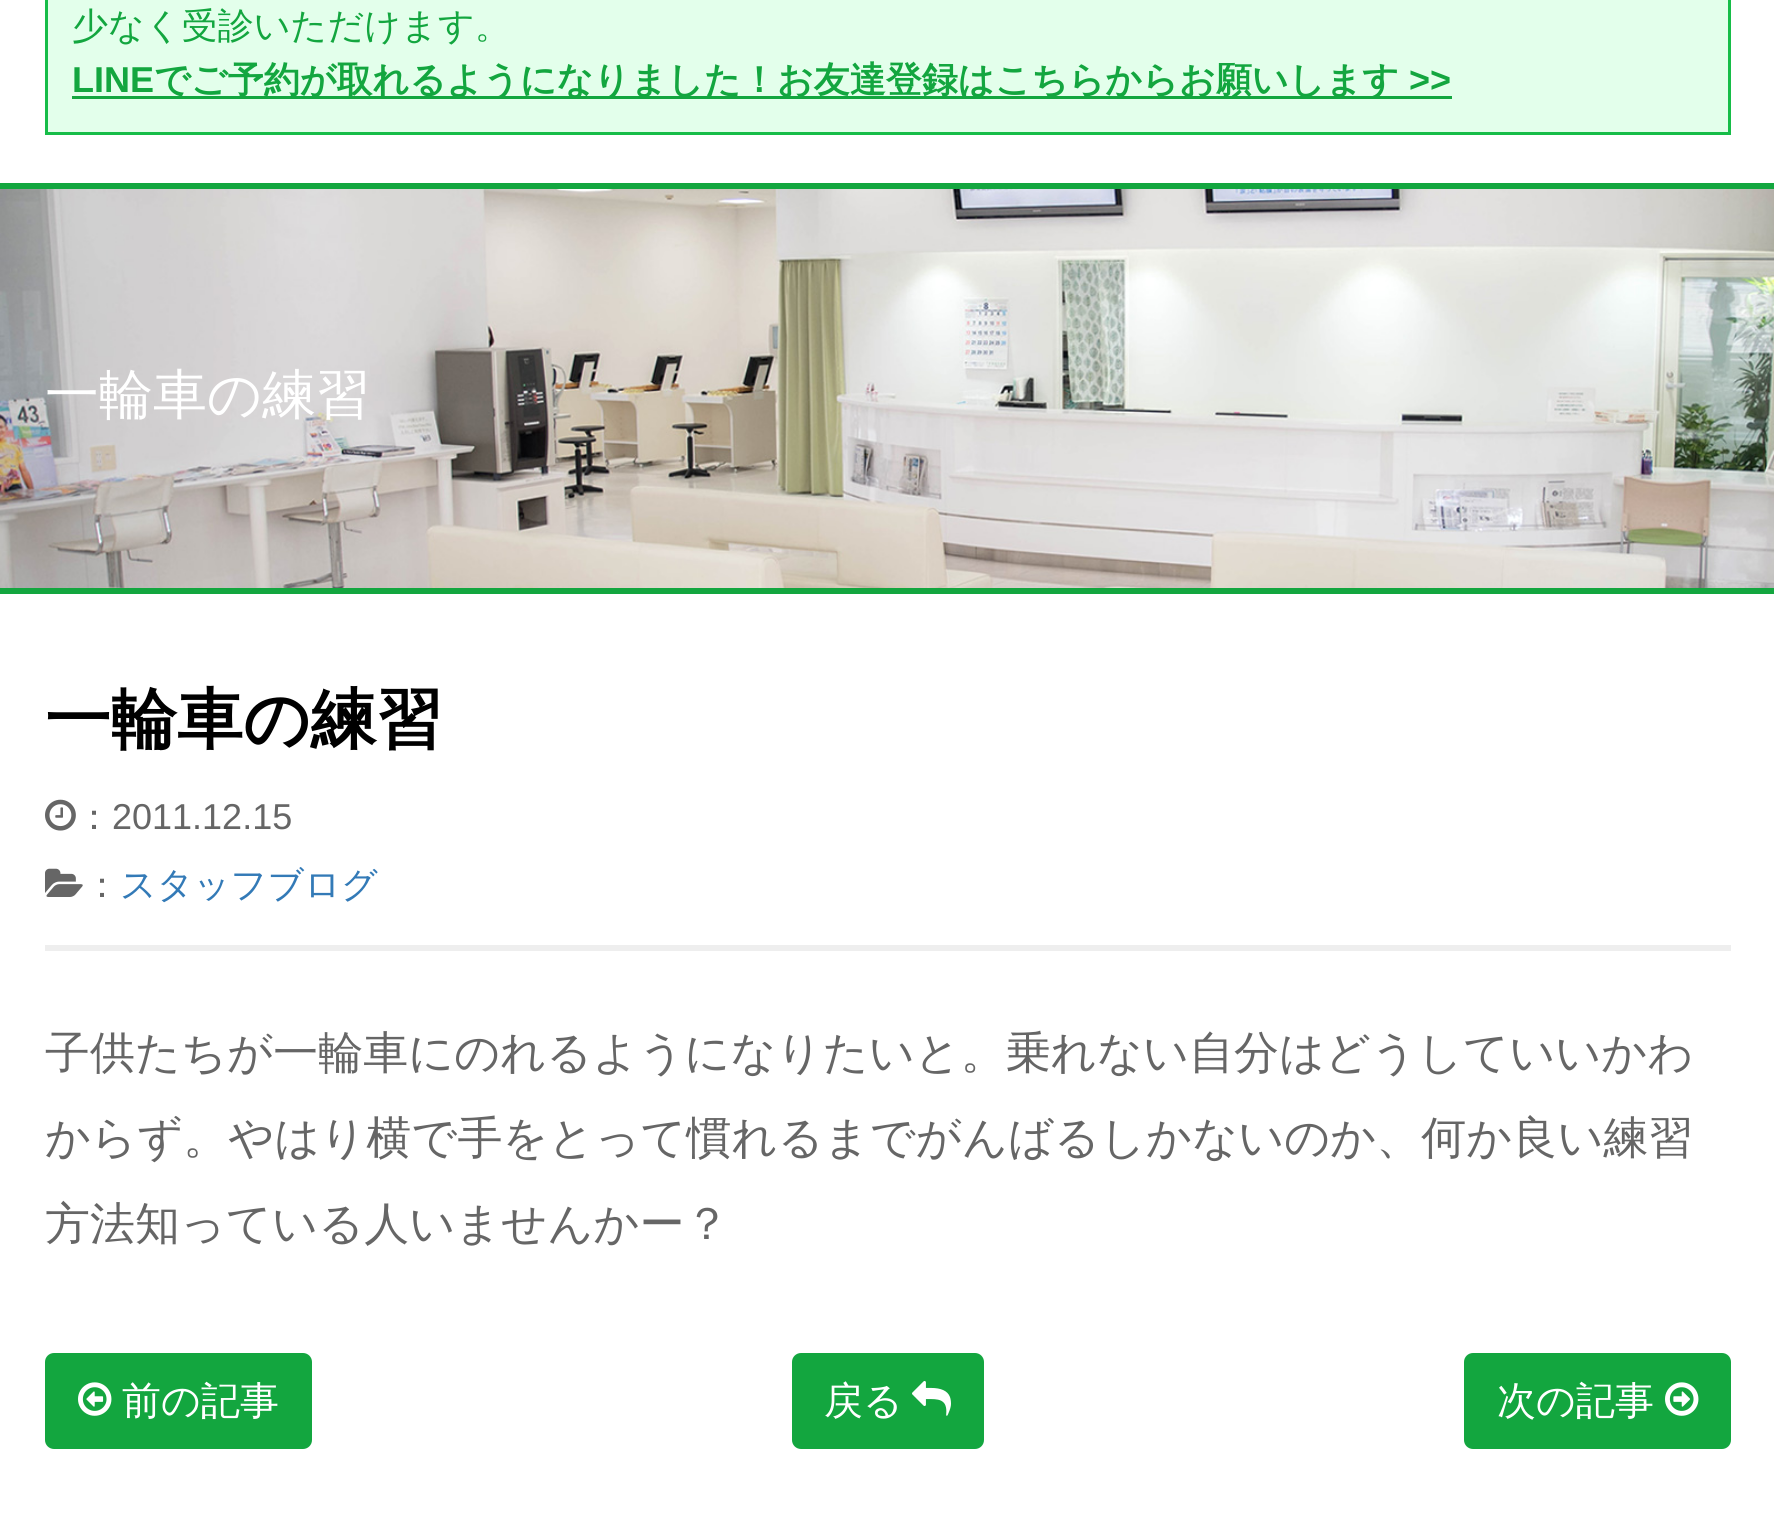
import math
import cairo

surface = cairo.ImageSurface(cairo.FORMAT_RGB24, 1774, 1532)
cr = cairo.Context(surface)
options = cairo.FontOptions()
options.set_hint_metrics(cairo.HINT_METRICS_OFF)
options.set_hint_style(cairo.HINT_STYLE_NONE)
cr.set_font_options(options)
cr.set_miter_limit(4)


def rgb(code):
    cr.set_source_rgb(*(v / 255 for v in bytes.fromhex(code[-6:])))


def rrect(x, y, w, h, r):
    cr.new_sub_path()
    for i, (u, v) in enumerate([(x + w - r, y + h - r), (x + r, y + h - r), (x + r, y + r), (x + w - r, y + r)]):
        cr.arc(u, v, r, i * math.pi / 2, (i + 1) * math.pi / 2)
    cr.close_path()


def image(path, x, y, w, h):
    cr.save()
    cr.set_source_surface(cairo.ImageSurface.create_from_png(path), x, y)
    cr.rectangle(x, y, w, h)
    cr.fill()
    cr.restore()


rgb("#ffffff")
cr.paint()
rgb("#e3ffeb")
cr.rectangle(46.5, -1.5, 1683, 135)
cr.fill_preserve()
rgb("#16bd48")
cr.set_line_width(3)
cr.stroke()
rgb("#13a63f")
cr.rectangle(72, 96, 1380, 3)
cr.fill()
cr.rectangle(0, 183, 1774, 6)
cr.fill()
image("img/1.png", 0, 189, 1774, 399)
cr.rectangle(0, 588, 1774, 6)
cr.fill()
rgb("#eeeeee")
cr.rectangle(45, 945, 1686, 6)
cr.fill()
image("img/2.png", 45, 799, 31, 32)
image("img/3.png", 45, 868, 38, 29)
rgb("#13a63f")
rrect(46.5, 1354.5, 264, 93, 7.5)
cr.fill_preserve()
cr.stroke()
image("img/4.png", 78, 1382, 34, 34)
rrect(793.5, 1354.5, 189, 93, 7.5)
cr.fill_preserve()
cr.stroke()
image("img/5.png", 912, 1381, 39, 35)
rrect(1465.5, 1354.5, 264, 93, 7.5)
cr.fill_preserve()
cr.stroke()
image("img/6.png", 1665, 1382, 34, 34)
cr.select_font_face("WenQuanYi Zen Hei Medium")
cr.set_font_size(36)
cr.move_to(72, 38)
cr.show_text("少なく受診いただけます。")
cr.select_font_face("Liberation Sans", cairo.FONT_SLANT_NORMAL, cairo.FONT_WEIGHT_BOLD)
cr.move_to(72, 92)
cr.show_text("LINE")
cr.select_font_face("WenQuanYi Zen Hei", cairo.FONT_SLANT_NORMAL, cairo.FONT_WEIGHT_BOLD)
cr.move_to(154, 92)
cr.show_text("でご予約が取れるようになりました！お友達登録はこちらからお願いします")
cr.select_font_face("Liberation Sans", cairo.FONT_SLANT_NORMAL, cairo.FONT_WEIGHT_BOLD)
cr.move_to(1409, 92)
cr.show_text(">>")
cr.select_font_face("WenQuanYi Zen Hei Medium")
cr.set_font_size(54)
rgb("#ffffff")
cr.move_to(45, 413)
cr.show_text("一輪車の練習")
cr.select_font_face("WenQuanYi Zen Hei", cairo.FONT_SLANT_NORMAL, cairo.FONT_WEIGHT_BOLD)
cr.set_font_size(66)
rgb("#000000")
cr.move_to(45, 742)
cr.show_text("一輪車の練習")
cr.select_font_face("WenQuanYi Zen Hei Medium")
cr.set_font_size(36)
rgb("#666666")
cr.move_to(76, 829)
cr.show_text("：")
cr.select_font_face("Liberation Sans")
cr.move_to(112, 829)
cr.show_text("2011.12.15")
cr.select_font_face("WenQuanYi Zen Hei Medium")
cr.move_to(84, 897)
cr.show_text("：")
rgb("#337ab7")
cr.move_to(120, 897)
cr.show_text("スタッフブログ")
cr.set_font_size(45)
rgb("#666666")
for x, y, s in [
    (45, 1068, "子供たちが一輪車にのれるようになりたいと。乗れない自分はどうしていいかわ"),
    (45, 1153, "からず。やはり横で手をとって慣れるまでがんばるしかないのか、何か良い練習"),
    (45, 1239, "方法知っている人いませんかー？"),
]:
    cr.move_to(x, y)
    cr.show_text(s)
cr.set_font_size(39)
rgb("#ffffff")
for x, y, s in [
    (122, 1414, "前の記事"),
    (824, 1414, "戻る"),
    (1497, 1414, "次の記事"),
]:
    cr.move_to(x, y)
    cr.show_text(s)
surface.write_to_png("page.png")
